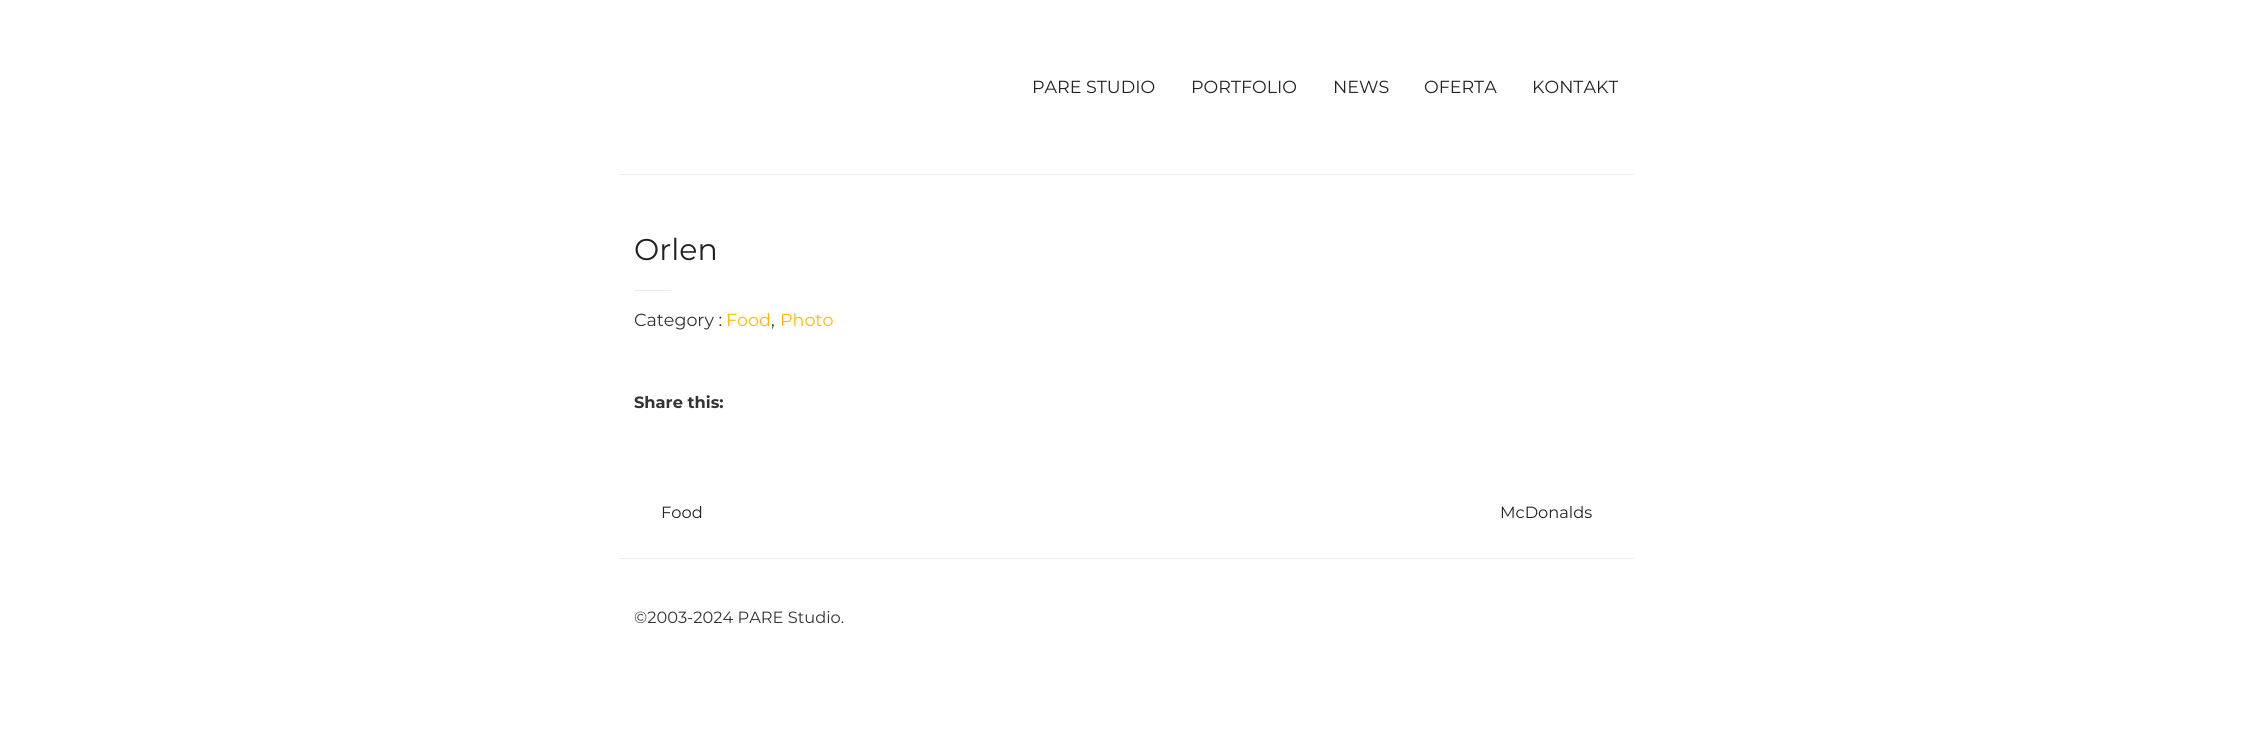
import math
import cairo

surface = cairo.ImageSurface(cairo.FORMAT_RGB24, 2252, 740)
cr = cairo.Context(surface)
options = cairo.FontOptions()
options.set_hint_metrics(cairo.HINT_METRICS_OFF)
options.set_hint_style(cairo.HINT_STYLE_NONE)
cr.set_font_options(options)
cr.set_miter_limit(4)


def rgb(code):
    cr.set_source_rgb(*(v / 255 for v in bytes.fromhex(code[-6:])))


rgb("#ffffff")
cr.paint()
for x, y, w, h, color in [
    (619, 174, 1015, 1, "#eeeeee"),
    (634, 290, 37, 1, "#eeeeee"),
    (619, 558, 1015, 1, "#eeeeee"),
]:
    rgb(color)
    cr.rectangle(x, y, w, h)
    cr.fill()
cr.select_font_face("Montserrat")
cr.set_font_size(17.5)
rgb("#222222")
for x, y, s in [
    (1032, 93, "PARE STUDIO"),
    (1191, 93, "PORTFOLIO"),
    (1333, 93, "NEWS"),
    (1424, 93, "OFERTA"),
    (1532, 93, "KONTAKT"),
]:
    cr.move_to(x, y)
    cr.show_text(s)
cr.set_font_size(30)
cr.move_to(634, 260)
cr.show_text("Orlen")
cr.set_font_size(17.5)
rgb("#333333")
cr.move_to(634, 326)
cr.show_text("Category :")
rgb("#ffba00")
cr.move_to(726, 326)
cr.show_text("Food")
rgb("#333333")
cr.move_to(771, 326)
cr.show_text(",")
rgb("#ffba00")
cr.move_to(780, 326)
cr.show_text("Photo")
cr.select_font_face("Montserrat", cairo.FONT_SLANT_NORMAL, cairo.FONT_WEIGHT_BOLD)
cr.set_font_size(16.25)
rgb("#333333")
cr.move_to(634, 408)
cr.show_text("Share this:")
cr.select_font_face("Montserrat")
rgb("#222222")
cr.move_to(661, 518)
cr.show_text("Food")
cr.move_to(1500, 518)
cr.show_text("McDonalds")
rgb("#333333")
cr.move_to(634, 623)
cr.show_text("©2003-2024 PARE Studio.")
surface.write_to_png("page.png")
